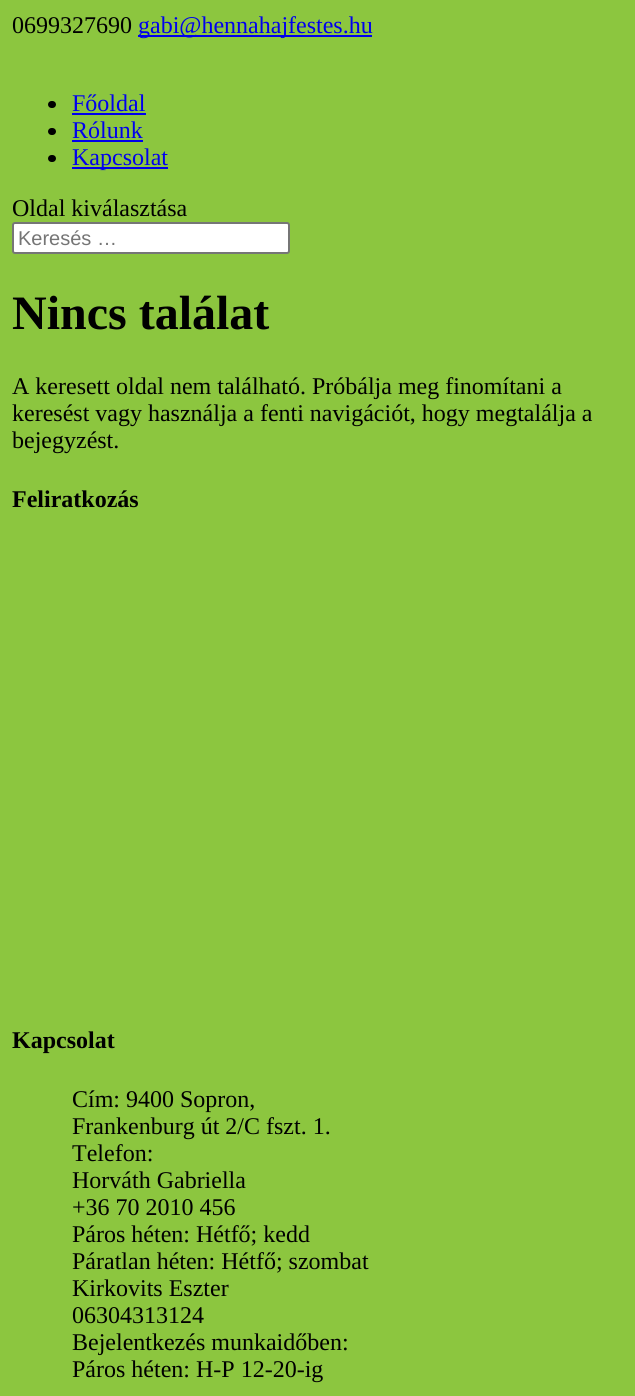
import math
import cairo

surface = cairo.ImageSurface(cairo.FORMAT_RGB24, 635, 1396)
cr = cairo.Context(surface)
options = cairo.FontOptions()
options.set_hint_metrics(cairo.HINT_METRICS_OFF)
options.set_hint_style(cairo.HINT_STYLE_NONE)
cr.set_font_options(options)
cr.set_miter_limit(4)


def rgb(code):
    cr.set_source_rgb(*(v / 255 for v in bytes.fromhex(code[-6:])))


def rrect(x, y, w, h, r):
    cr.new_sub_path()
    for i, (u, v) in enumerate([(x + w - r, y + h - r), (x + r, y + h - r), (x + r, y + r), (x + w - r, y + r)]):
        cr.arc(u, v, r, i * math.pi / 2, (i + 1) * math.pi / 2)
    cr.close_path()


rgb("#8cc63f")
cr.paint()
rgb("#0000ee")
cr.rectangle(138, 35, 234, 2)
cr.fill()
rgb("#000000")
rrect(48, 101, 8, 7, 3.5)
cr.fill()
rgb("#0000ee")
cr.rectangle(72, 113, 74, 2)
cr.fill()
rgb("#000000")
rrect(48, 128, 8, 7, 3.5)
cr.fill()
rgb("#0000ee")
cr.rectangle(72, 140, 71, 2)
cr.fill()
rgb("#000000")
rrect(48, 155, 8, 7, 3.5)
cr.fill()
rgb("#0000ee")
cr.rectangle(72, 167, 96, 2)
cr.fill()
rgb("#ffffff")
rrect(13, 223, 276, 30, 2)
cr.fill_preserve()
rgb("#767676")
cr.stroke()
cr.select_font_face("Liberation Serif")
cr.set_font_size(24)
rgb("#000000")
cr.move_to(12, 33)
cr.show_text("0699327690")
rgb("#0000ee")
for x, y, s in [
    (138, 33, "gabi@hennahajfestes.hu"),
    (72, 111, "Főoldal"),
    (72, 138, "Rólunk"),
    (72, 165, "Kapcsolat"),
]:
    cr.move_to(x, y)
    cr.show_text(s)
rgb("#000000")
cr.move_to(12, 216)
cr.show_text("Oldal kiválasztása")
cr.select_font_face("Liberation Sans")
cr.set_font_size(20)
rgb("#757575")
cr.move_to(18, 245)
cr.show_text("Keresés …")
cr.select_font_face("Liberation Serif", cairo.FONT_SLANT_NORMAL, cairo.FONT_WEIGHT_BOLD)
cr.set_font_size(48)
rgb("#000000")
cr.move_to(12, 329)
cr.show_text("Nincs találat")
cr.select_font_face("Liberation Serif")
cr.set_font_size(24)
for x, y, s in [
    (12, 394, "A keresett oldal nem található. Próbálja meg finomítani a"),
    (12, 421, "keresést vagy használja a fenti navigációt, hogy megtalálja a"),
    (12, 448, "bejegyzést."),
]:
    cr.move_to(x, y)
    cr.show_text(s)
cr.select_font_face("Liberation Serif", cairo.FONT_SLANT_NORMAL, cairo.FONT_WEIGHT_BOLD)
cr.move_to(12, 507)
cr.show_text("Feliratkozás")
cr.move_to(12, 1048)
cr.show_text("Kapcsolat")
cr.select_font_face("Liberation Serif")
for x, y, s in [
    (72, 1107, "Cím: 9400 Sopron,"),
    (72, 1134, "Frankenburg út 2/C fszt. 1."),
    (72, 1161, "Telefon:"),
    (72, 1188, "Horváth Gabriella"),
    (72, 1215, "+36 70 2010 456"),
    (72, 1242, "Páros héten: Hétfő; kedd"),
    (72, 1269, "Páratlan héten: Hétfő; szombat"),
    (72, 1296, "Kirkovits Eszter"),
    (72, 1323, "06304313124"),
    (72, 1350, "Bejelentkezés munkaidőben:"),
    (72, 1377, "Páros héten: H-P 12-20-ig"),
]:
    cr.move_to(x, y)
    cr.show_text(s)
surface.write_to_png("page.png")
